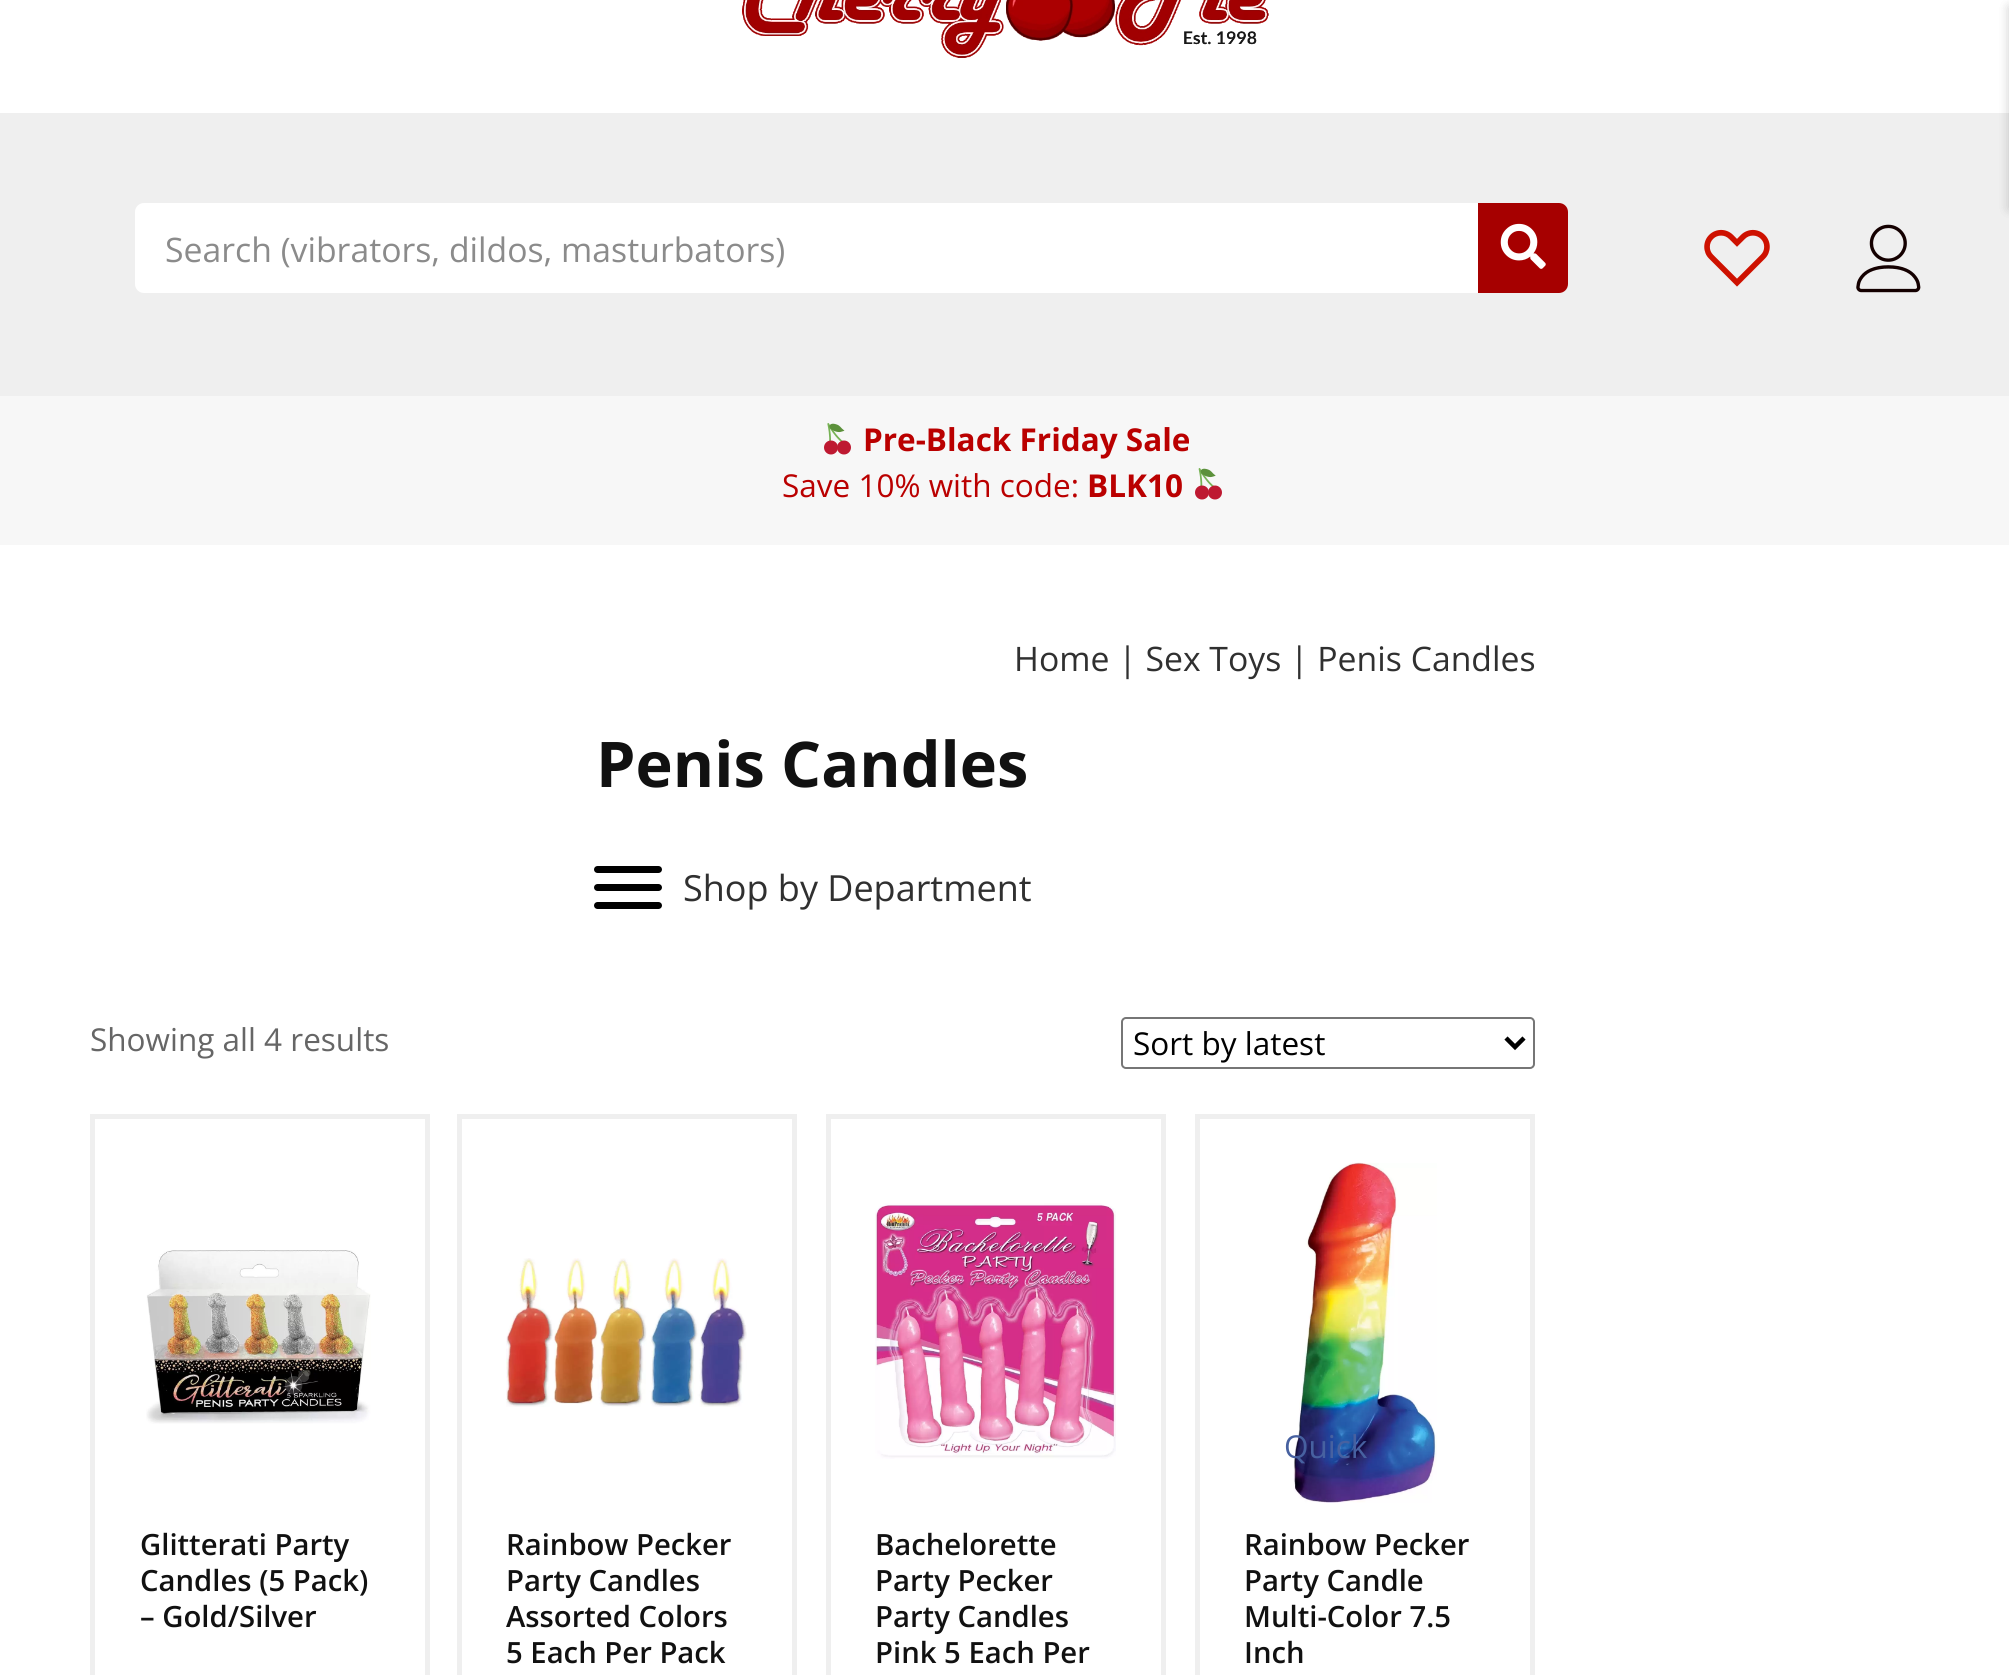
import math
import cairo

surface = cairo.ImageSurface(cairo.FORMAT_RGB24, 2009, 1675)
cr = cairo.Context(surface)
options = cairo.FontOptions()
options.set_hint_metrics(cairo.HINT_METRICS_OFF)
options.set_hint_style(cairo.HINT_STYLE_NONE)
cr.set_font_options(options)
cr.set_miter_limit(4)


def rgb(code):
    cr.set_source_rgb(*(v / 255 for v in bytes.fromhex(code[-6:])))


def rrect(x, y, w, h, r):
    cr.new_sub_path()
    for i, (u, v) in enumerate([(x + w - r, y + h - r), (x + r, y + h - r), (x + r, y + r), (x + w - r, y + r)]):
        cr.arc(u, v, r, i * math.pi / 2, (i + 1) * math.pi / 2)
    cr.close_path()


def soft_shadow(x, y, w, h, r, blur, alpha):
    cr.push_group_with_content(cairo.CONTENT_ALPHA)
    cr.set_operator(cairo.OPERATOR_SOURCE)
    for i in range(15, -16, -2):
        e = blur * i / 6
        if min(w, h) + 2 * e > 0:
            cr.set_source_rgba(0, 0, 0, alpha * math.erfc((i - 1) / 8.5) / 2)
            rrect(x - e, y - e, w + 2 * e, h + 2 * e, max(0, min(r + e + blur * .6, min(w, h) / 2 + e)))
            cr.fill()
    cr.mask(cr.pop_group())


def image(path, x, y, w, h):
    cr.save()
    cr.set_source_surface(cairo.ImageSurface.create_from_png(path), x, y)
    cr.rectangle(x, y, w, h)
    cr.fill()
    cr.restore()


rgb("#ffffff")
cr.paint()
rgb("#efefef")
cr.rectangle(0, 113, 2009, 283)
cr.fill()
rgb("#000000")
soft_shadow(2009, 7, 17, 202, 0, 5.5, 0.1)
soft_shadow(2009, 7, 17, 202, 0, 5.5, 0.1)
image("img/1.png", 742, 0, 527, 58)
rgb("#ffffff")
rrect(135, 203, 1433, 90, 9)
cr.fill()
rgb("#a60000")
cr.new_path()
cr.move_to(1478, 203)
cr.line_to(1559, 203)
cr.curve_to(1564, 203, 1568, 207, 1568, 212)
cr.line_to(1568, 284)
cr.curve_to(1568, 289, 1564, 293, 1559, 293)
cr.line_to(1478, 293)
cr.close_path()
cr.fill()
image("img/2.png", 1500, 223, 46, 46)
image("img/3.png", 1704, 229, 66, 58)
image("img/4.png", 1856, 224, 65, 69)
rgb("#f7f7f7")
cr.rectangle(0, 396, 2009, 149)
cr.fill()
image("img/5.png", 824, 423, 27, 32)
image("img/6.png", 1195, 468, 27, 32)
rgb("#000000")
rrect(594, 884, 68, 7, 3.5)
cr.fill()
rrect(594, 866, 68, 7, 3.5)
cr.fill()
rrect(594, 902, 68, 7, 3.5)
cr.fill()
rrect(1122, 1018, 412, 50, 4)
rgb("#767676")
cr.stroke()
cr.new_path()
cr.move_to(1506, 1038)
cr.line_to(1515, 1047)
cr.line_to(1524, 1038)
rgb("#000000")
cr.set_line_width(4.5)
cr.stroke()
cr.rectangle(92.5, 1116.5, 335, 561)
rgb("#efefef")
cr.set_line_width(5)
cr.stroke()
image("img/7.png", 146, 1250, 225, 174)
cr.rectangle(459.5, 1116.5, 335, 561)
cr.stroke()
image("img/8.png", 506, 1258, 241, 149)
cr.rectangle(828.5, 1116.5, 335, 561)
cr.stroke()
image("img/9.png", 875, 1203, 241, 256)
cr.rectangle(1197.5, 1116.5, 335, 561)
cr.stroke()
image("img/10.png", 1293, 1162, 144, 341)
cr.select_font_face("Open Sans")
cr.set_font_size(33.75)
rgb("#8b8b8b")
cr.move_to(165, 262)
cr.show_text("Search (vibrators, dildos, masturbators)")
cr.select_font_face("Open Sans", cairo.FONT_SLANT_NORMAL, cairo.FONT_WEIGHT_BOLD)
cr.set_font_size(31.5)
rgb("#ba0000")
cr.move_to(863, 451)
cr.show_text("Pre-Black Friday Sale")
cr.select_font_face("Open Sans")
cr.move_to(782, 497)
cr.show_text("Save 10% with code:")
cr.select_font_face("Open Sans", cairo.FONT_SLANT_NORMAL, cairo.FONT_WEIGHT_BOLD)
cr.move_to(1087, 497)
cr.show_text("BLK10")
cr.select_font_face("Open Sans")
cr.set_font_size(33.75)
rgb("#303030")
cr.move_to(1014, 671)
cr.show_text("Home | Sex Toys | Penis Candles")
cr.select_font_face("Open Sans", cairo.FONT_SLANT_NORMAL, cairo.FONT_WEIGHT_BOLD)
cr.set_font_size(63)
rgb("#111111")
cr.move_to(596, 787)
cr.show_text("Penis Candles")
cr.select_font_face("Open Sans")
cr.set_font_size(36)
rgb("#303030")
cr.move_to(683, 901)
cr.show_text("Shop by Department")
cr.set_font_size(31.5)
rgb("#666666")
cr.move_to(90, 1051)
cr.show_text("Showing all 4 results")
rgb("#000000")
cr.move_to(1133, 1055)
cr.show_text("Sort by latest")
cr.select_font_face("Open Sans SemiBold")
cr.set_font_size(29.25)
rgb("#111111")
for x, y, s in [
    (140, 1555, "Glitterati Party"),
    (140, 1591, "Candles (5 Pack)"),
    (140, 1627, "– Gold/Silver"),
    (506, 1555, "Rainbow Pecker"),
    (506, 1591, "Party Candles"),
    (506, 1627, "Assorted Colors"),
    (506, 1663, "5 Each Per Pack"),
    (875, 1555, "Bachelorette"),
    (875, 1591, "Party Pecker"),
    (875, 1627, "Party Candles"),
    (875, 1663, "Pink 5 Each Per"),
]:
    cr.move_to(x, y)
    cr.show_text(s)
cr.select_font_face("Open Sans")
cr.set_font_size(31.5)
rgb("#4761a0")
cr.move_to(1284, 1458)
cr.show_text("Quick")
cr.select_font_face("Open Sans SemiBold")
cr.set_font_size(29.25)
rgb("#111111")
for x, y, s in [
    (1244, 1555, "Rainbow Pecker"),
    (1244, 1591, "Party Candle"),
    (1244, 1627, "Multi-Color 7.5"),
    (1244, 1663, "Inch"),
]:
    cr.move_to(x, y)
    cr.show_text(s)
surface.write_to_png("page.png")
